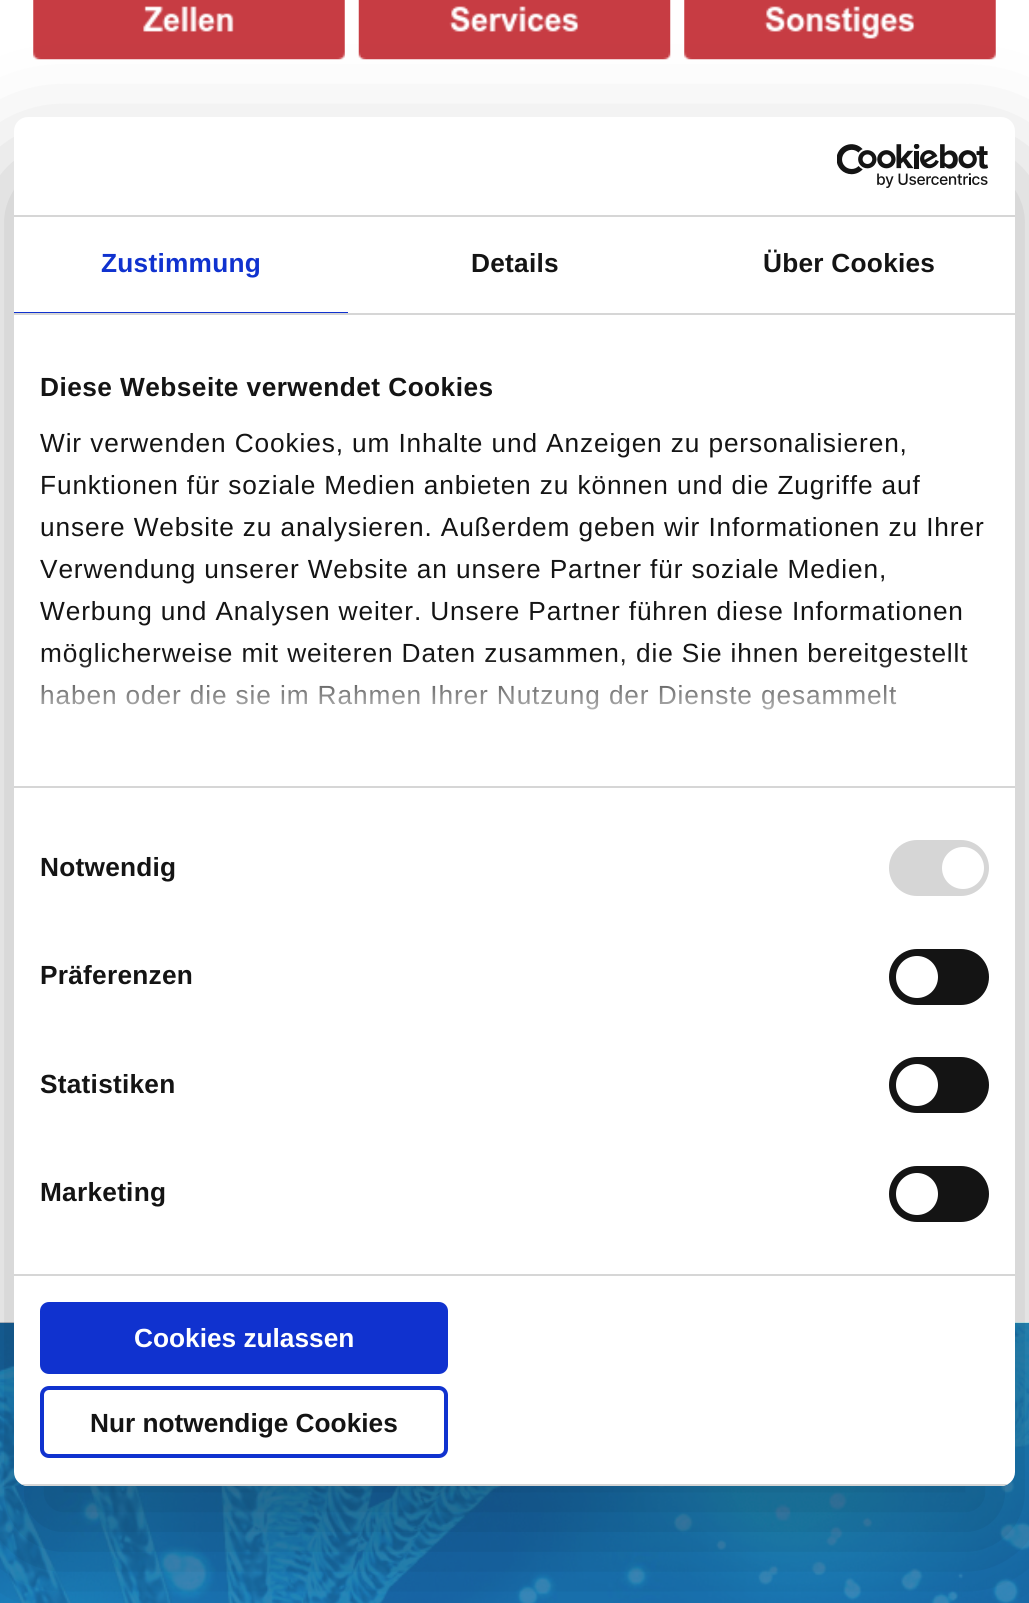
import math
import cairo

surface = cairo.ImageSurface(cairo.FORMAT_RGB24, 1029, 1603)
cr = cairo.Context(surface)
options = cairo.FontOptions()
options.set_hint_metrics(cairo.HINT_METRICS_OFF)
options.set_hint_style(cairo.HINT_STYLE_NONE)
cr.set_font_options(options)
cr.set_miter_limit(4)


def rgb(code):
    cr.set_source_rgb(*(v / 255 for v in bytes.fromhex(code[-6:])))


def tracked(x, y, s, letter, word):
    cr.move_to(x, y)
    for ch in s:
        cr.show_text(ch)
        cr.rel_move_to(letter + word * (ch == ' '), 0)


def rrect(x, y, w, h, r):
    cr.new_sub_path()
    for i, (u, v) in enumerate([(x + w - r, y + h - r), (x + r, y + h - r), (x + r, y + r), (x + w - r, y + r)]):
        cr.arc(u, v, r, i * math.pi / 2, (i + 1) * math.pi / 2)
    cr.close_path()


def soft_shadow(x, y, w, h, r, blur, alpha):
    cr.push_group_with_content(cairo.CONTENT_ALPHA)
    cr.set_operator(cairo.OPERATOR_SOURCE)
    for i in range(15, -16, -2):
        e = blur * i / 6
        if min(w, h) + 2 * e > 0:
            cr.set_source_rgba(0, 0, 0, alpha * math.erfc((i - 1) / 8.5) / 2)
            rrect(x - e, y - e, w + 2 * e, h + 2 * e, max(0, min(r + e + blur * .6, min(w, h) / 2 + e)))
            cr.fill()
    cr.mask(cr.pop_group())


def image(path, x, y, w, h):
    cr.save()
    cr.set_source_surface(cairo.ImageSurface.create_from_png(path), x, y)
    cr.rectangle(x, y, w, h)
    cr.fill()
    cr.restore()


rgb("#ffffff")
cr.paint()
image("img/1.png", 33, 0, 312, 60)
image("img/2.png", 358, 0, 313, 60)
image("img/3.png", 684, 0, 312, 60)
image("img/5.png", 0, 1322, 1029, 281)
rgb("#000000")
soft_shadow(14, 173, 1001, 1369, 14, 59.5, 0.3)
rgb("#ffffff")
rrect(14, 117, 1001, 1369, 14)
cr.fill()
rgb("#d6d6d6")
cr.rectangle(14, 215, 1001, 2)
cr.fill()
image("img/4.png", 837, 144, 152, 44)
for x, y, w, h, color in [
    (14, 313, 1001, 2, "#d6d6d6"),
    (14, 312, 334, 1, "#1032cf"),
    (14, 786, 1001, 2, "#d6d6d6"),
    (14, 1274, 1001, 2, "#d6d6d6"),
]:
    rgb(color)
    cr.rectangle(x, y, w, h)
    cr.fill()
rrect(889, 840, 100, 56, 28)
cr.fill()
rgb("#ffffff")
cr.arc(963, 868, 21, 0, 2 * math.pi)
cr.fill()
rgb("#141414")
rrect(889, 949, 100, 56, 28)
cr.fill()
rgb("#ffffff")
cr.arc(917, 977, 21, 0, 2 * math.pi)
cr.fill()
rgb("#141414")
rrect(889, 1057, 100, 56, 28)
cr.fill()
rgb("#ffffff")
cr.arc(917, 1085, 21, 0, 2 * math.pi)
cr.fill()
rgb("#141414")
rrect(889, 1166, 100, 56, 28)
cr.fill()
rgb("#ffffff")
cr.arc(917, 1194, 21, 0, 2 * math.pi)
cr.fill()
cr.save()
rrect(14, 117, 1001, 1369, 14)
cr.clip()
rgb("#d6d6d6")
cr.rectangle(14, 1484, 1001, 2)
cr.fill()
cr.restore()
rgb("#1032cf")
rrect(42, 1304, 404, 68, 7)
cr.fill_preserve()
cr.set_line_width(4)
cr.stroke()
rrect(42, 1388, 404, 68, 7)
cr.stroke()
cr.select_font_face("Liberation Sans", cairo.FONT_SLANT_NORMAL, cairo.FONT_WEIGHT_BOLD)
cr.set_font_size(26.25)
tracked(101, 272, "Zustimmung", 0.25, 0)
rgb("#141414")
tracked(471, 272, "Details", 0.25, 0)
tracked(763, 272, "Über Cookies", 0.25, 0)
tracked(40, 396, "Diese Webseite verwendet Cookies", 0.45, 0)
cr.select_font_face("Liberation Sans")
for x, y, s in [
    (40, 452, "Wir verwenden Cookies, um Inhalte und Anzeigen zu personalisieren,"),
    (40, 494, "Funktionen für soziale Medien anbieten zu können und die Zugriffe auf"),
    (40, 536, "unsere Website zu analysieren. Außerdem geben wir Informationen zu Ihrer"),
    (40, 578, "Verwendung unserer Website an unsere Partner für soziale Medien,"),
    (40, 620, "Werbung und Analysen weiter. Unsere Partner führen diese Informationen"),
    (40, 662, "möglicherweise mit weiteren Daten zusammen, die Sie ihnen bereitgestellt"),
    (40, 704, "haben oder die sie im Rahmen Ihrer Nutzung der Dienste gesammelt"),
]:
    tracked(x, y, s, 0.88, 0)
gradient = cairo.LinearGradient(503, 786, 503, 655)
gradient.add_color_stop_rgba(0, 1, 1, 1, 1)
gradient.add_color_stop_rgba(0.5, 1, 1, 1, 0.8)
gradient.add_color_stop_rgba(1, 1, 1, 1, 0)
cr.set_source(gradient)
cr.rectangle(42, 657, 926, 53)
cr.fill()
cr.select_font_face("Liberation Sans", cairo.FONT_SLANT_NORMAL, cairo.FONT_WEIGHT_BOLD)
rgb("#141414")
for x, y, s in [
    (40, 876, "Notwendig"),
    (40, 984, "Präferenzen"),
    (40, 1093, "Statistiken"),
    (40, 1201, "Marketing"),
]:
    tracked(x, y, s, 0.25, 0)
rgb("#ffffff")
cr.move_to(134, 1347)
cr.show_text("Cookies zulassen")
rgb("#141414")
cr.move_to(90, 1432)
cr.show_text("Nur notwendige Cookies")
surface.write_to_png("page.png")
